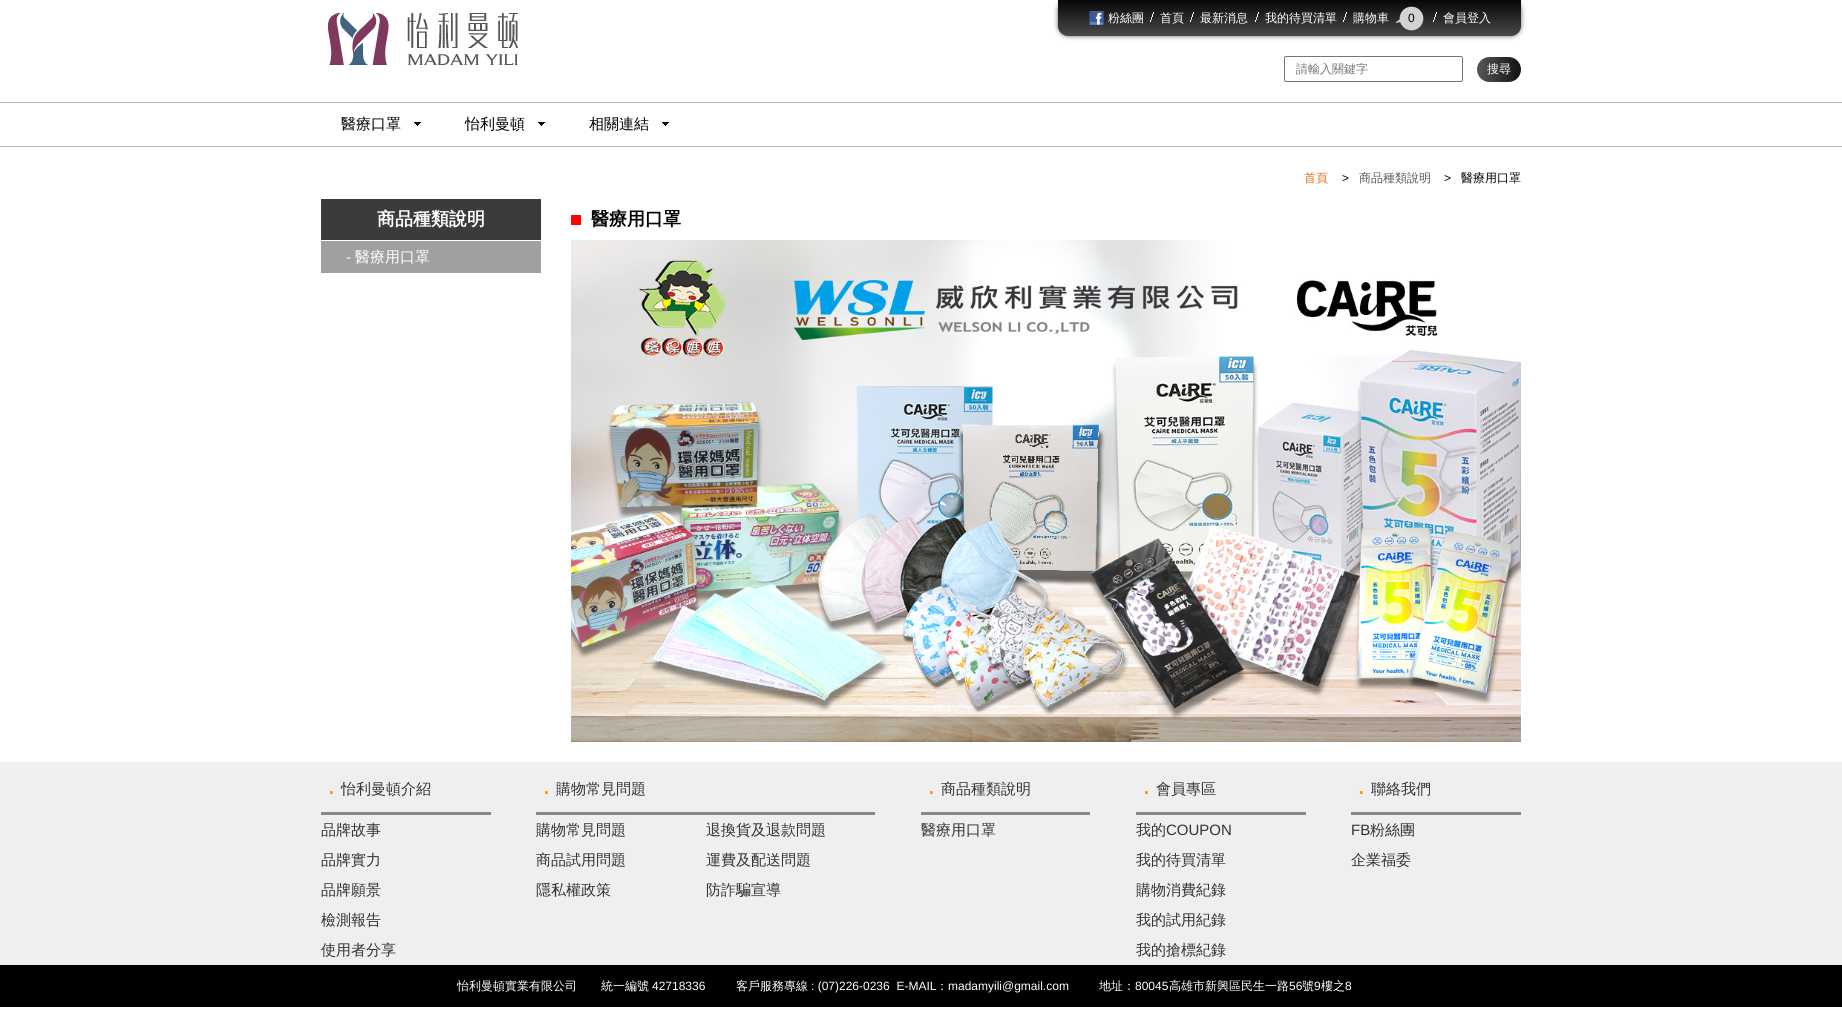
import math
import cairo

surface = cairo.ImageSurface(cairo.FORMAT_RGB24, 1842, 1009)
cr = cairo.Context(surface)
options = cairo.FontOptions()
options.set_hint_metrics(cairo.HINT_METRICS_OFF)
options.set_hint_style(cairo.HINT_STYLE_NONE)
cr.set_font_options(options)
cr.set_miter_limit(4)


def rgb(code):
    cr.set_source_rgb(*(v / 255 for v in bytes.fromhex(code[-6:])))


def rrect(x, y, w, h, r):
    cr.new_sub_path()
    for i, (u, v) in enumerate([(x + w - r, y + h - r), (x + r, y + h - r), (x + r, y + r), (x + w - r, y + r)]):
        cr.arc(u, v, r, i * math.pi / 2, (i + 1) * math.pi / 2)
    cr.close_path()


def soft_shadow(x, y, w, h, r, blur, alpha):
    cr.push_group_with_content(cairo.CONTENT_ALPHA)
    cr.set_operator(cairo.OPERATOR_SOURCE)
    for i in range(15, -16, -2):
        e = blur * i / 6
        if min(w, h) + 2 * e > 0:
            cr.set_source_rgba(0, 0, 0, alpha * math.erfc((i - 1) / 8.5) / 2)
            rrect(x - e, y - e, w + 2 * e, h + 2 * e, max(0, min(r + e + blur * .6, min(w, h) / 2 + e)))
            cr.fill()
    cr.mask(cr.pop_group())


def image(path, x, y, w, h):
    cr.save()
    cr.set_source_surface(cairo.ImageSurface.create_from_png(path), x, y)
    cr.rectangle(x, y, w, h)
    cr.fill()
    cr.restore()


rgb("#ffffff")
cr.paint()
image("img/1.png", 328, 13, 190, 52)
rgb("#666666")
soft_shadow(1058, 0, 463, 36, 10, 2.5, 1)
gradient = cairo.LinearGradient(1290, 0, 1290, 36)
gradient.add_color_stop_rgba(0, 0.024, 0.024, 0.024, 1)
gradient.add_color_stop_rgba(1, 0.29, 0.29, 0.29, 1)
cr.set_source(gradient)
cr.new_path()
cr.move_to(1058, 0)
cr.line_to(1521, 0)
cr.line_to(1521, 26)
cr.curve_to(1521, 31.5, 1516.5, 36, 1511, 36)
cr.line_to(1068, 36)
cr.curve_to(1062.5, 36, 1058, 31.5, 1058, 26)
cr.close_path()
cr.fill()
image("img/2.png", 1089, 11, 15, 15)
image("img/3.png", 1150, 12, 4, 10)
image("img/3.png", 1190, 12, 4, 10)
image("img/3.png", 1255, 12, 4, 10)
image("img/3.png", 1343, 12, 4, 10)
image("img/4.png", 1395, 6, 29, 25)
image("img/3.png", 1433, 12, 4, 10)
rrect(1284.5, 56.5, 178, 25, 1.5)
rgb("#767676")
cr.set_line_width(1)
cr.stroke()
gradient = cairo.LinearGradient(1477, 70, 1521, 70)
gradient.add_color_stop_rgba(0, 0.341, 0.341, 0.341, 1)
gradient.add_color_stop_rgba(1, 0.067, 0.067, 0.067, 1)
cr.set_source(gradient)
rrect(1477, 57, 44, 25, 12.5)
cr.fill()
rgb("#bbbbbb")
cr.rectangle(0, 102, 1842, 1)
cr.fill()
cr.rectangle(0, 146, 1842, 1)
cr.fill()
image("img/5.png", 414, 122, 7, 4)
image("img/5.png", 538, 122, 7, 4)
image("img/5.png", 662, 122, 7, 4)
for x, y, w, h, color in [
    (321, 199, 220, 41, "#3b3b3b"),
    (321, 241, 220, 32, "#a1a0a0"),
    (571, 215, 10, 10, "#ff0000"),
]:
    rgb(color)
    cr.rectangle(x, y, w, h)
    cr.fill()
image("img/6.png", 571, 240, 950, 502)
for x, y, w, h, color in [
    (0, 762, 1842, 203, "#efefef"),
    (321, 812, 170, 3, "#898989"),
    (536, 812, 339, 3, "#898989"),
    (921, 812, 169, 3, "#898989"),
    (1136, 812, 170, 3, "#898989"),
    (1351, 812, 170, 3, "#898989"),
    (0, 965, 1842, 42, "#000000"),
]:
    rgb(color)
    cr.rectangle(x, y, w, h)
    cr.fill()
cr.select_font_face("WenQuanYi Zen Hei Medium")
cr.set_font_size(12)
rgb("#ffffff")
for x, y, s in [
    (1108, 22, "粉絲團"),
    (1160, 22, "首頁"),
    (1200, 22, "最新消息"),
    (1265, 22, "我的待買清單"),
    (1353, 22, "購物車"),
]:
    cr.move_to(x, y)
    cr.show_text(s)
cr.select_font_face("Liberation Sans")
rgb("#000000")
cr.move_to(1408, 22)
cr.show_text("0")
cr.select_font_face("WenQuanYi Zen Hei Medium")
rgb("#ffffff")
cr.move_to(1443, 22)
cr.show_text("會員登入")
rgb("#757575")
cr.move_to(1296, 73)
cr.show_text("請輸入關鍵字")
rgb("#ffffff")
cr.move_to(1487, 73)
cr.show_text("搜尋")
cr.set_font_size(15)
rgb("#000000")
for x, y, s in [
    (341, 129, "醫療口罩"),
    (465, 129, "怡利曼頓"),
    (589, 129, "相關連結"),
]:
    cr.move_to(x, y)
    cr.show_text(s)
cr.set_font_size(12)
rgb("#e96a0a")
cr.move_to(1304, 182)
cr.show_text("首頁")
cr.select_font_face("Liberation Sans")
rgb("#000000")
cr.move_to(1342, 182)
cr.show_text(">")
cr.select_font_face("WenQuanYi Zen Hei Medium")
rgb("#585858")
cr.move_to(1359, 182)
cr.show_text("商品種類說明")
cr.select_font_face("Liberation Sans")
rgb("#000000")
cr.move_to(1444, 182)
cr.show_text(">")
cr.select_font_face("WenQuanYi Zen Hei Medium")
cr.move_to(1461, 182)
cr.show_text("醫療用口罩")
cr.select_font_face("WenQuanYi Zen Hei", cairo.FONT_SLANT_NORMAL, cairo.FONT_WEIGHT_BOLD)
cr.set_font_size(18)
rgb("#ffffff")
cr.move_to(377, 225)
cr.show_text("商品種類說明")
cr.select_font_face("Liberation Sans")
cr.set_font_size(15)
cr.move_to(346, 262)
cr.show_text("-")
cr.select_font_face("WenQuanYi Zen Hei Medium")
cr.move_to(355, 262)
cr.show_text("醫療用口罩")
cr.select_font_face("WenQuanYi Zen Hei", cairo.FONT_SLANT_NORMAL, cairo.FONT_WEIGHT_BOLD)
cr.set_font_size(18)
rgb("#000000")
cr.move_to(591, 225)
cr.show_text("醫療用口罩")
cr.set_font_size(20)
rgb("#ff9900")
cr.move_to(321, 794)
cr.show_text("．")
cr.select_font_face("WenQuanYi Zen Hei Medium")
cr.set_font_size(15)
rgb("#333333")
for x, y, s in [
    (341, 794, "怡利曼頓介紹"),
    (321, 835, "品牌故事"),
    (321, 865, "品牌實力"),
    (321, 895, "品牌願景"),
    (321, 925, "檢測報告"),
    (321, 955, "使用者分享"),
]:
    cr.move_to(x, y)
    cr.show_text(s)
cr.select_font_face("WenQuanYi Zen Hei", cairo.FONT_SLANT_NORMAL, cairo.FONT_WEIGHT_BOLD)
cr.set_font_size(20)
rgb("#ff9900")
cr.move_to(536, 794)
cr.show_text("．")
cr.select_font_face("WenQuanYi Zen Hei Medium")
cr.set_font_size(15)
rgb("#333333")
for x, y, s in [
    (556, 794, "購物常見問題"),
    (536, 835, "購物常見問題"),
    (706, 835, "退換貨及退款問題"),
    (536, 865, "商品試用問題"),
    (706, 865, "運費及配送問題"),
    (536, 895, "隱私權政策"),
    (706, 895, "防詐騙宣導"),
]:
    cr.move_to(x, y)
    cr.show_text(s)
cr.select_font_face("WenQuanYi Zen Hei", cairo.FONT_SLANT_NORMAL, cairo.FONT_WEIGHT_BOLD)
cr.set_font_size(20)
rgb("#ff9900")
cr.move_to(921, 794)
cr.show_text("．")
cr.select_font_face("WenQuanYi Zen Hei Medium")
cr.set_font_size(15)
rgb("#333333")
cr.move_to(941, 794)
cr.show_text("商品種類說明")
cr.move_to(921, 835)
cr.show_text("醫療用口罩")
cr.select_font_face("WenQuanYi Zen Hei", cairo.FONT_SLANT_NORMAL, cairo.FONT_WEIGHT_BOLD)
cr.set_font_size(20)
rgb("#ff9900")
cr.move_to(1136, 794)
cr.show_text("．")
cr.select_font_face("WenQuanYi Zen Hei Medium")
cr.set_font_size(15)
rgb("#333333")
cr.move_to(1156, 794)
cr.show_text("會員專區")
cr.move_to(1136, 835)
cr.show_text("我的")
cr.select_font_face("Liberation Sans")
cr.move_to(1166, 835)
cr.show_text("COUPON")
cr.select_font_face("WenQuanYi Zen Hei Medium")
for x, y, s in [
    (1136, 865, "我的待買清單"),
    (1136, 895, "購物消費紀錄"),
    (1136, 925, "我的試用紀錄"),
    (1136, 955, "我的搶標紀錄"),
]:
    cr.move_to(x, y)
    cr.show_text(s)
cr.select_font_face("WenQuanYi Zen Hei", cairo.FONT_SLANT_NORMAL, cairo.FONT_WEIGHT_BOLD)
cr.set_font_size(20)
rgb("#ff9900")
cr.move_to(1351, 794)
cr.show_text("．")
cr.select_font_face("WenQuanYi Zen Hei Medium")
cr.set_font_size(15)
rgb("#333333")
cr.move_to(1371, 794)
cr.show_text("聯絡我們")
cr.select_font_face("Liberation Sans")
cr.move_to(1351, 835)
cr.show_text("FB")
cr.select_font_face("WenQuanYi Zen Hei Medium")
cr.move_to(1370, 835)
cr.show_text("粉絲團")
cr.move_to(1351, 865)
cr.show_text("企業福委")
cr.set_font_size(12)
rgb("#ffffff")
cr.move_to(457, 990)
cr.show_text("怡利曼頓實業有限公司")
cr.move_to(601, 990)
cr.show_text("統一編號")
cr.select_font_face("Liberation Sans")
cr.move_to(652, 990)
cr.show_text("42718336")
cr.select_font_face("WenQuanYi Zen Hei Medium")
cr.move_to(736, 990)
cr.show_text("客戶服務專線")
cr.select_font_face("Liberation Sans")
cr.move_to(811, 990)
cr.show_text(": (07)226-0236  E-MAIL")
cr.select_font_face("WenQuanYi Zen Hei Medium")
cr.move_to(936, 990)
cr.show_text("：")
cr.select_font_face("Liberation Sans")
cr.move_to(948, 990)
cr.show_text("madamyili@gmail.com")
cr.select_font_face("WenQuanYi Zen Hei Medium")
cr.move_to(1099, 990)
cr.show_text("地址：")
cr.select_font_face("Liberation Sans")
cr.move_to(1135, 990)
cr.show_text("80045")
cr.select_font_face("WenQuanYi Zen Hei Medium")
cr.move_to(1169, 990)
cr.show_text("高雄市新興區民生一路")
cr.select_font_face("Liberation Sans")
cr.move_to(1289, 990)
cr.show_text("56")
cr.select_font_face("WenQuanYi Zen Hei Medium")
cr.move_to(1302, 990)
cr.show_text("號")
cr.select_font_face("Liberation Sans")
cr.move_to(1314, 990)
cr.show_text("9")
cr.select_font_face("WenQuanYi Zen Hei Medium")
cr.move_to(1321, 990)
cr.show_text("樓之")
cr.select_font_face("Liberation Sans")
cr.move_to(1345, 990)
cr.show_text("8")
surface.write_to_png("page.png")
